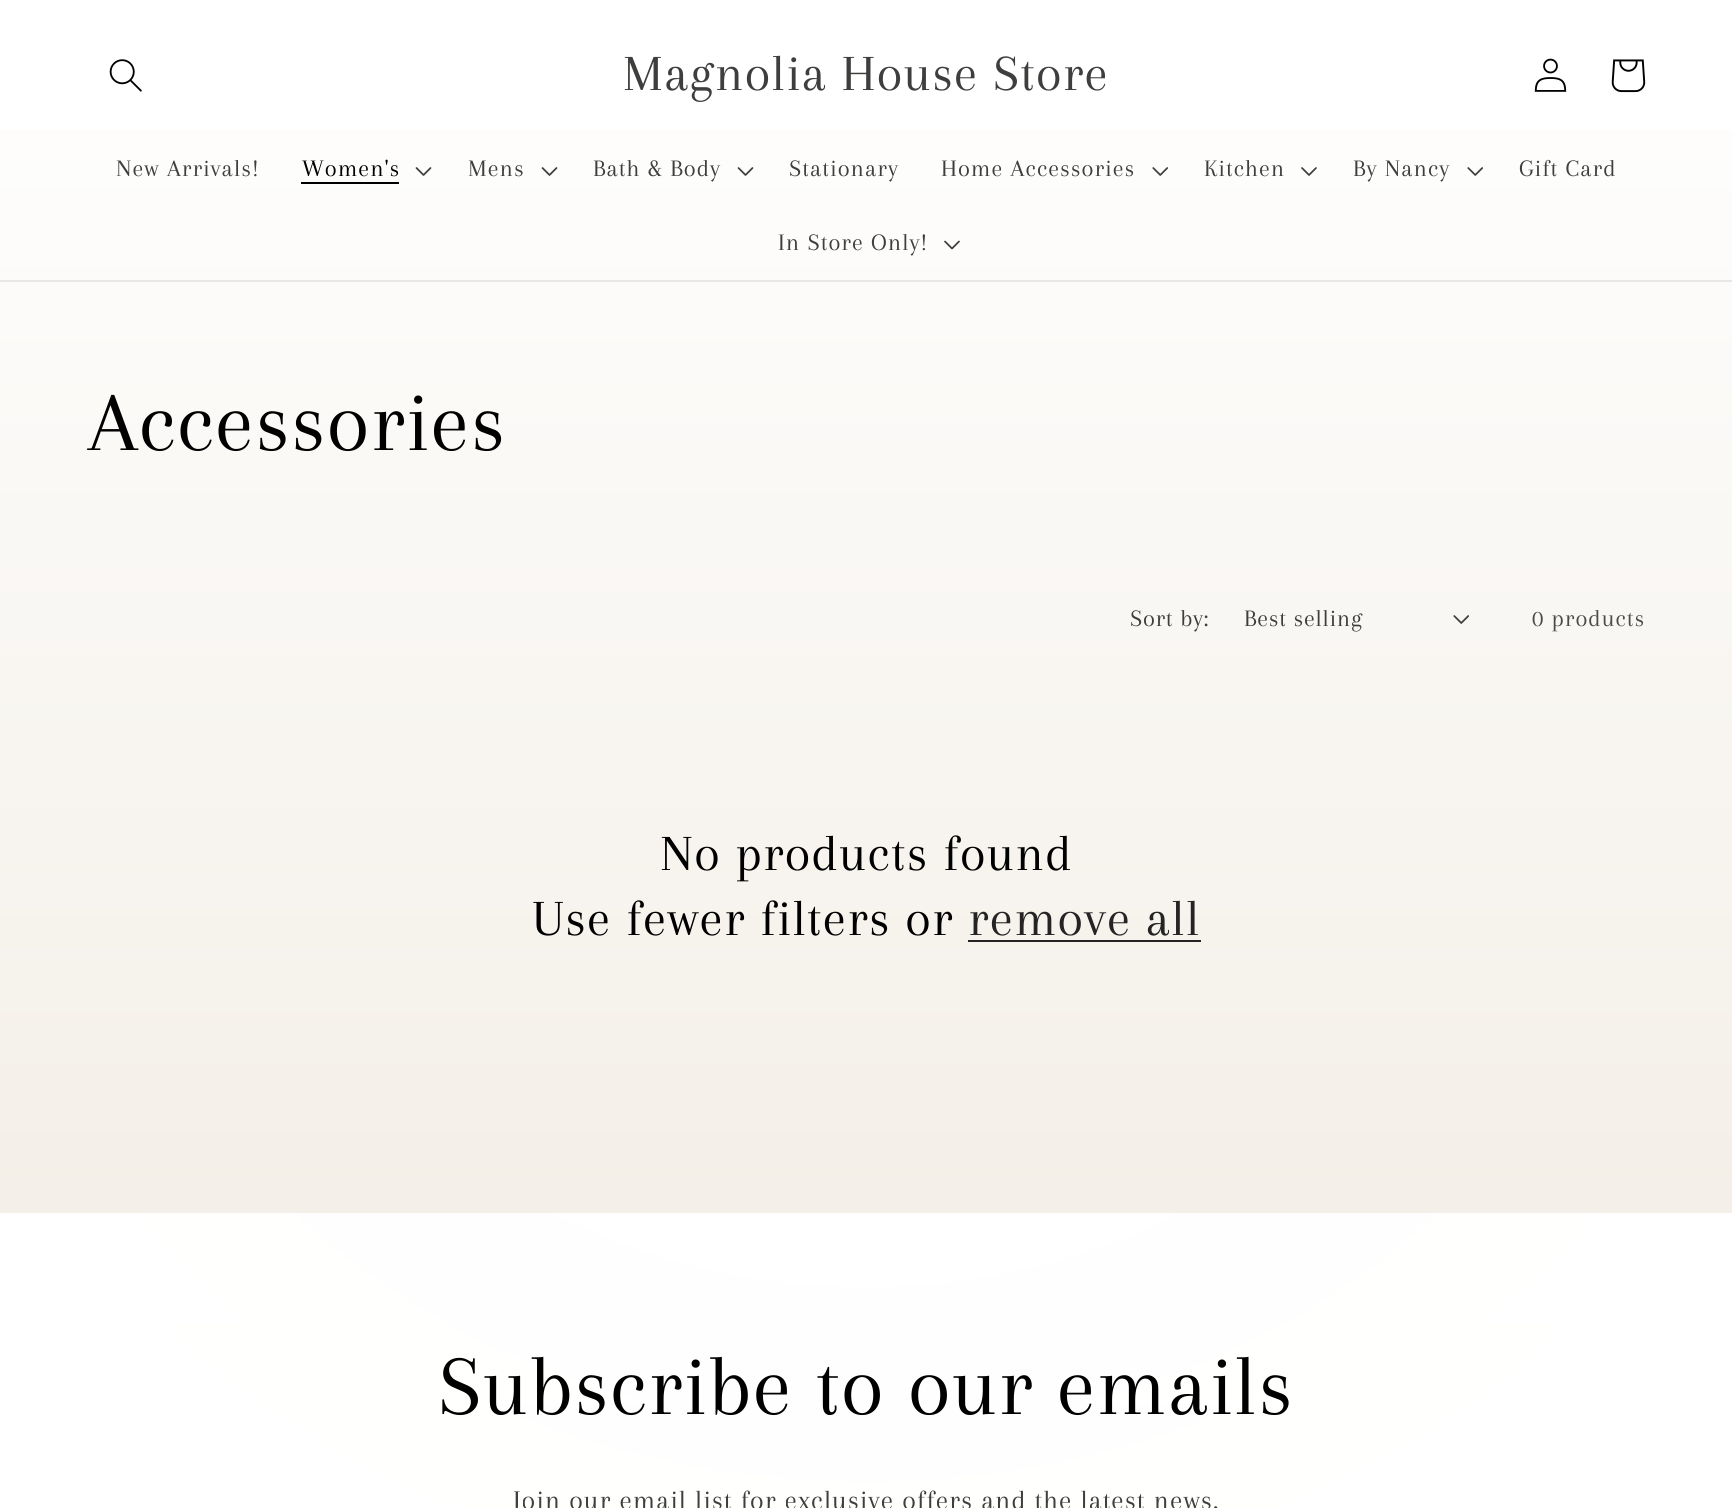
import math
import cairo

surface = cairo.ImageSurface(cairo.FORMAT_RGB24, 1732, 1508)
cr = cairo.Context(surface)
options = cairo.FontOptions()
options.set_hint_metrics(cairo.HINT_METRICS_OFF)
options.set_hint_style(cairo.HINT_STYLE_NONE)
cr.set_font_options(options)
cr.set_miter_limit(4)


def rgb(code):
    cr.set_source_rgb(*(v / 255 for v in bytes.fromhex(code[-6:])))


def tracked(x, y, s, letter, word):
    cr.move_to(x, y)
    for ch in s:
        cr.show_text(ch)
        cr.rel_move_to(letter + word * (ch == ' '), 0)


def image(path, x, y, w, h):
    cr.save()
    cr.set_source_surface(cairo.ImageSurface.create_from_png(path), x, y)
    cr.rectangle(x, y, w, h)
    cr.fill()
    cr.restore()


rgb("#ffffff")
cr.paint()
gradient = cairo.LinearGradient(866, 0, 866, 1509)
gradient.add_color_stop_rgba(0, 1, 1, 1, 1)
gradient.add_color_stop_rgba(1, 0.945, 0.922, 0.886, 1)
cr.set_source(gradient)
cr.rectangle(0, 130, 1732, 1378)
cr.fill()
rgb("#e8e7e6")
cr.rectangle(0, 280, 1732, 2)
cr.fill()
image("img/1.png", 109, 59, 33, 33)
image("img/2.png", 1534, 58, 33, 34)
image("img/3.png", 1611, 59, 35, 34)
rgb("#000000")
cr.rectangle(301, 182, 98, 2)
cr.fill()
image("img/4.png", 415, 167, 17, 9)
image("img/4.png", 541, 167, 17, 9)
image("img/4.png", 737, 167, 17, 9)
image("img/5.png", 1152, 167, 16, 9)
image("img/6.png", 1301, 167, 16, 9)
image("img/5.png", 1467, 167, 16, 9)
image("img/7.png", 944, 240, 16, 10)
image("img/8.png", 1453, 615, 16, 9)
rgb("#252424")
cr.rectangle(968, 940, 233, 2)
cr.fill()
gradient = cairo.RadialGradient(0, 0, 0, 0, 0, 1)
gradient.set_matrix(cairo.Matrix(1 / 1225, 0, 0, 1 / 1067, -1 * 866 / 1225, -1 * 754 / 1067))
gradient.add_color_stop_rgba(0.5, 1, 1, 1, 1)
gradient.add_color_stop_rgba(0.5, 1, 1, 1, 0.96)
gradient.add_color_stop_rgba(1, 1, 1, 1, 1)
cr.set_source(gradient)
cr.rectangle(0, 1213, 1732, 295)
cr.fill()
cr.select_font_face("Arapey")
cr.set_font_size(52.5)
rgb("#3e3e3d")
tracked(623, 90, "Magnolia House Store", 1.3, 0)
cr.set_font_size(24.5)
tracked(116, 176, "New Arrivals!", 1.05, 0)
rgb("#000000")
tracked(302, 176, "Women's", 1.05, 0)
rgb("#3e3e3d")
for x, y, s in [
    (468, 176, "Mens"),
    (593, 176, "Bath & Body"),
    (789, 176, "Stationary"),
    (941, 176, "Home Accessories"),
    (1204, 176, "Kitchen"),
    (1353, 176, "By Nancy"),
    (1519, 176, "Gift Card"),
    (778, 250, "In Store Only!"),
]:
    tracked(x, y, s, 1.05, 0)
cr.set_font_size(87.5)
rgb("#000000")
tracked(88, 450, "Accessories", 1.3, 0)
cr.set_font_size(24.5)
rgb("#3e3e3d")
tracked(1130, 626, "Sort by:", 0.75, 0)
tracked(1244, 626, "Best selling", 0.75, 0)
rgb("#4b4a49")
tracked(1532, 626, "0 products", 1.05, 0)
cr.set_font_size(52.5)
rgb("#000000")
tracked(660, 870, "No products found", 1.3, 0)
tracked(532, 935, "Use fewer filters or", 1.3, 0)
rgb("#252424")
tracked(968, 935, "remove all", 1.3, 0)
cr.set_font_size(87.5)
rgb("#000000")
tracked(438, 1414, "Subscribe to our emails", 1.3, 0)
cr.set_font_size(28)
rgb("#3e3e3d")
tracked(513, 1509, "Join our email list for exclusive offers and the latest news.", 1.05, 0)
surface.write_to_png("page.png")
